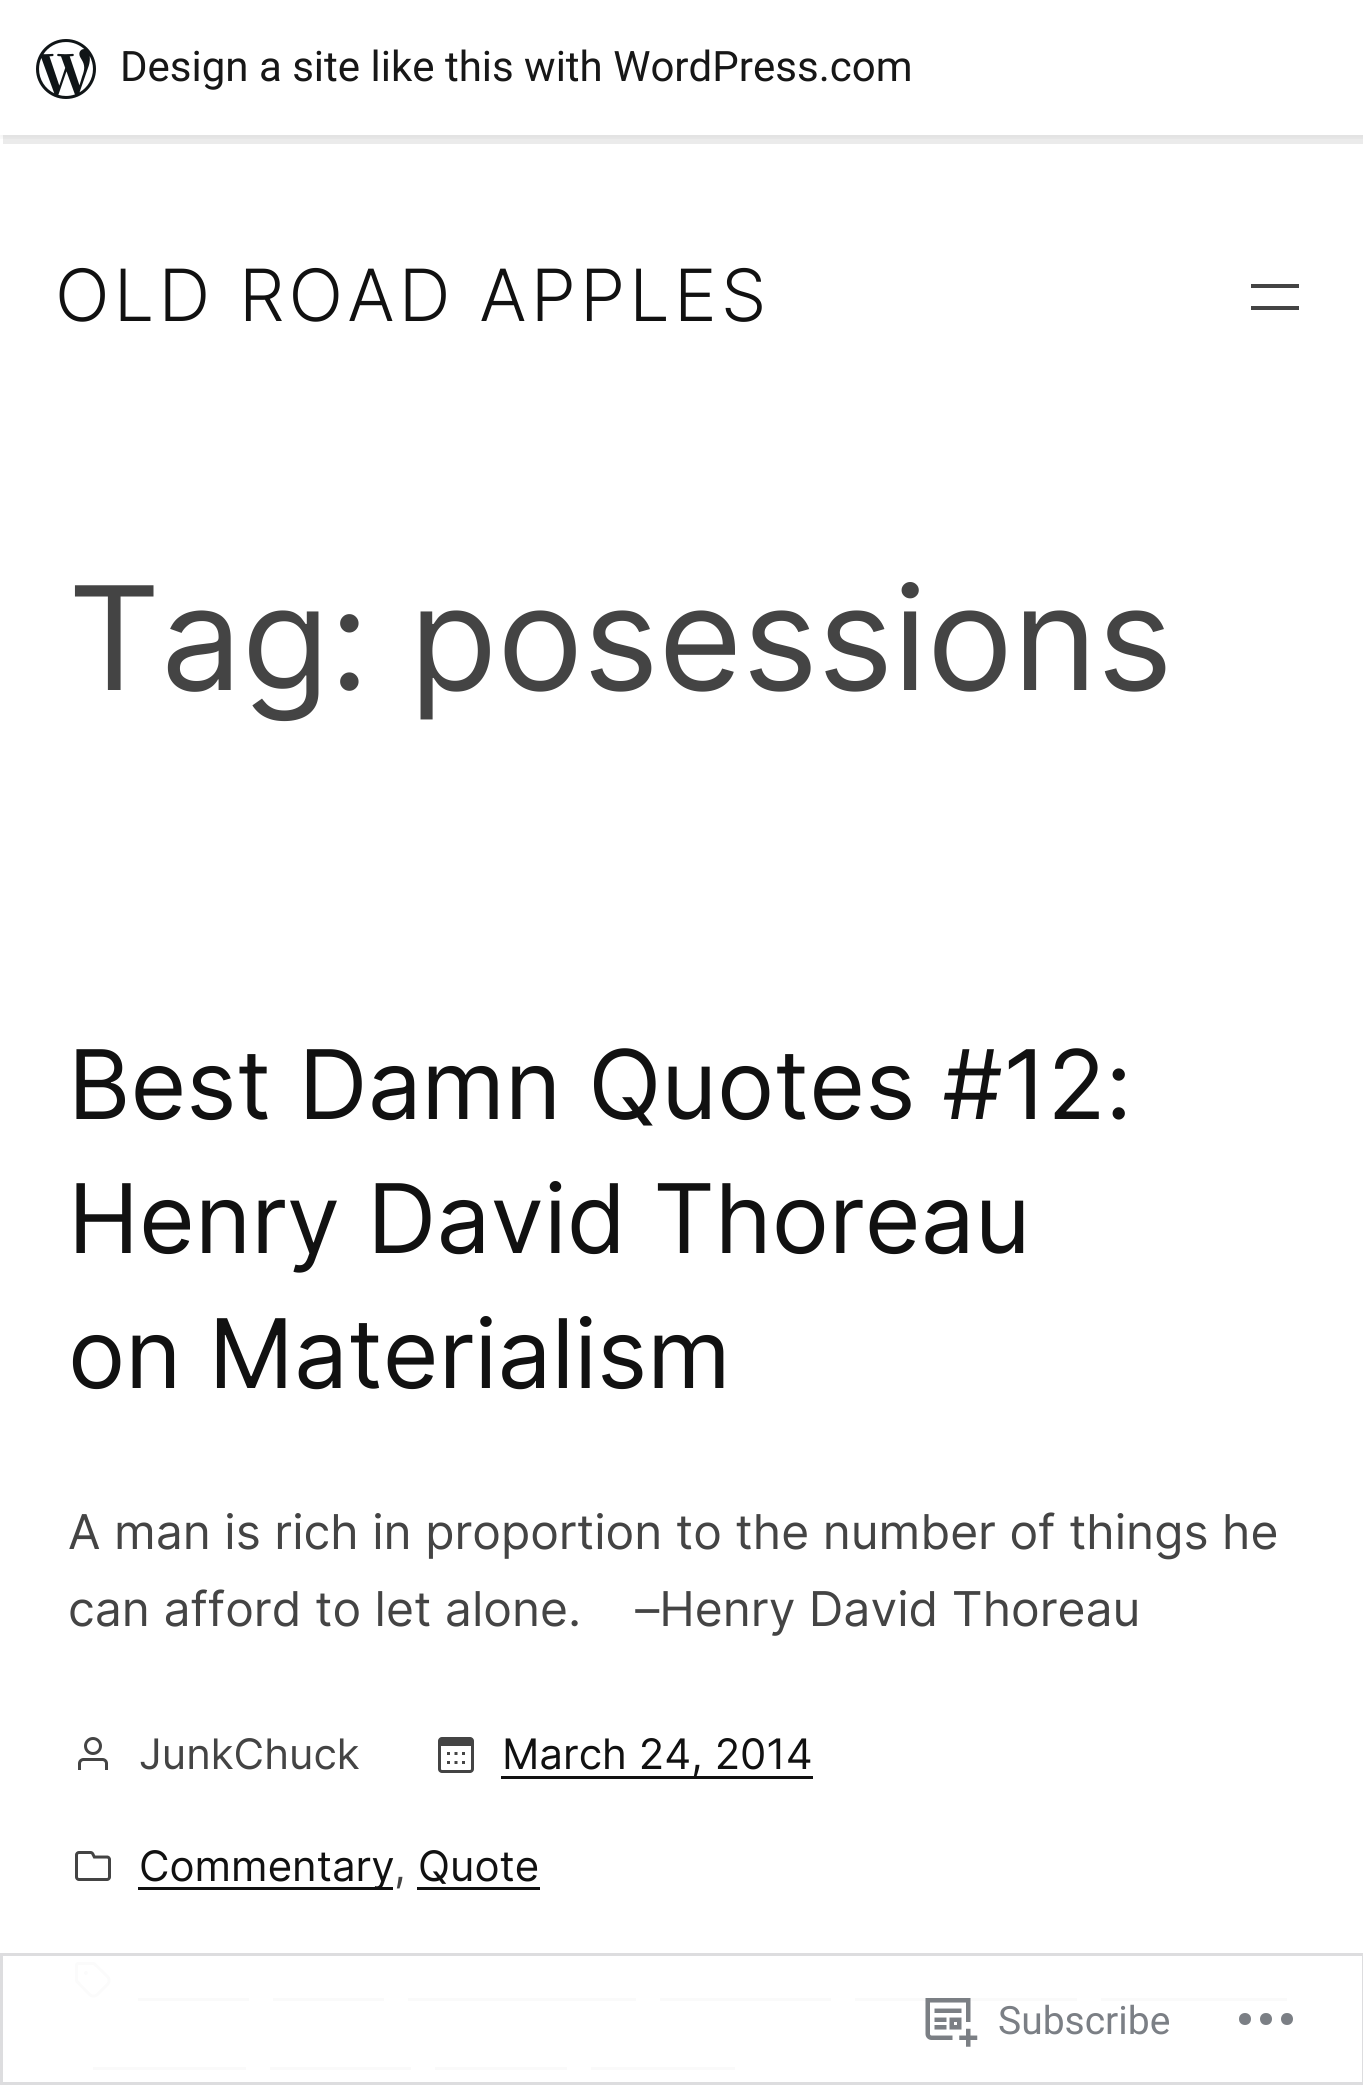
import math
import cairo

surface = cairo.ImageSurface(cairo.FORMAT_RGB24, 1363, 2085)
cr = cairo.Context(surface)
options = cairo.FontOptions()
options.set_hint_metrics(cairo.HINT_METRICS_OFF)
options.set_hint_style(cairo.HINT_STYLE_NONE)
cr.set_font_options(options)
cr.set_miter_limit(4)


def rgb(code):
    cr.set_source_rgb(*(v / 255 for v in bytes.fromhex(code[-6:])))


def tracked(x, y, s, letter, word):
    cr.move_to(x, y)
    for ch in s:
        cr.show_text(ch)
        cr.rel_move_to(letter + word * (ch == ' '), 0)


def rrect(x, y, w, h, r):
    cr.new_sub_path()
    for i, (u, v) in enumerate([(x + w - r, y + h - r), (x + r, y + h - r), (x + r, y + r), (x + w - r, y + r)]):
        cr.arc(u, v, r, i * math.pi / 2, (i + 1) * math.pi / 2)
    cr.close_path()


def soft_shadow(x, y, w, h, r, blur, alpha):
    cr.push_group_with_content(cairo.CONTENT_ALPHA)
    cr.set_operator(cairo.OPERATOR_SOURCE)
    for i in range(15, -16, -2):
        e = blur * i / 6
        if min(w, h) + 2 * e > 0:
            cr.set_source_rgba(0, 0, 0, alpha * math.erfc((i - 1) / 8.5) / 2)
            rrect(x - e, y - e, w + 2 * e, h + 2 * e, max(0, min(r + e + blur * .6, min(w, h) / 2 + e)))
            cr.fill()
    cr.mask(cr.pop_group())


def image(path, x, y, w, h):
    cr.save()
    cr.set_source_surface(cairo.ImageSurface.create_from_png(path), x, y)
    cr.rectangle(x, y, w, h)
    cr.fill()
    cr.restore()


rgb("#ffffff")
cr.paint()
cr.save()
cr.rectangle(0, 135, 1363, 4)
cr.clip()
rgb("#000000")
soft_shadow(0, 3, 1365, 135, 0, 3, 0.05)
cr.restore()
cr.set_source_rgba(0, 0, 0, 0.08)
cr.new_path()
cr.move_to(3, 135)
cr.line_to(3, 144)
cr.line_to(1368, 144)
cr.line_to(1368, 9)
cr.line_to(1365, 9)
cr.line_to(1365, 135)
cr.close_path()
cr.fill()
image("img/1.png", 36, 39, 60, 60)
rgb("#444444")
cr.rectangle(1251, 284, 48, 4)
cr.fill()
cr.rectangle(1251, 306, 48, 4)
cr.fill()
image("img/2.png", 78, 1737, 30, 33)
image("img/3.png", 438, 1737, 36, 36)
rgb("#111111")
cr.rectangle(501, 1776, 312, 3)
cr.fill()
image("img/4.png", 75, 1851, 36, 30)
cr.rectangle(138, 1887, 255, 3)
cr.fill()
cr.rectangle(417, 1887, 123, 3)
cr.fill()
image("img/5.png", 75, 1962, 36, 36)
for x, y, w, h, color in [
    (138, 1998, 111, 3, "#fafafa"),
    (273, 1998, 111, 3, "#fafafa"),
    (408, 1998, 228, 3, "#fafafa"),
    (660, 1998, 171, 3, "#fafafa"),
    (855, 1998, 222, 3, "#fafafa"),
    (1101, 1998, 186, 3, "#fafafa"),
    (93, 2067, 153, 3, "#fafafa"),
    (270, 2067, 141, 3, "#fafafa"),
    (435, 2067, 132, 3, "#fafafa"),
    (591, 2067, 144, 3, "#fafafa"),
]:
    rgb(color)
    cr.rectangle(x, y, w, h)
    cr.fill()
cr.rectangle(1.5, 1954.5, 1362, 129)
rgb("#dddddf")
cr.set_line_width(3)
cr.stroke()
image("img/6.png", 925, 1998, 53, 49)
rgb("#7b7f85")
cr.new_path()
cr.move_to(1251, 2019)
cr.curve_to(1251, 2027, 1239, 2027, 1239, 2019)
cr.curve_to(1239, 2011, 1251, 2011, 1251, 2019)
cr.close_path()
cr.move_to(1287, 2013)
cr.curve_to(1279, 2013, 1279, 2025, 1287, 2025)
cr.curve_to(1295, 2025, 1295, 2013, 1287, 2013)
cr.close_path()
cr.move_to(1266, 2013)
cr.curve_to(1258, 2013, 1258, 2025, 1266, 2025)
cr.curve_to(1274, 2025, 1274, 2013, 1266, 2013)
cr.close_path()
cr.fill()
cr.select_font_face("Roboto")
cr.set_font_size(42)
rgb("#171717")
cr.move_to(120, 81)
cr.show_text("Design a site like this with WordPress.com")
cr.select_font_face("Inter Light")
cr.set_font_size(72)
rgb("#111111")
tracked(55, 321, "OLD ROAD APPLES", 4.25, 0)
cr.select_font_face("Inter")
cr.set_font_size(144)
rgb("#444444")
cr.move_to(68, 690)
cr.show_text("Tag: posessions")
cr.set_font_size(96)
rgb("#111111")
for x, y, s in [
    (68, 1119, "Best Damn Quotes #12:"),
    (68, 1253, "Henry David Thoreau"),
    (68, 1388, "on Materialism"),
]:
    cr.move_to(x, y)
    cr.show_text(s)
cr.set_font_size(48)
rgb("#444444")
cr.move_to(68, 1549)
cr.show_text("A man is rich in proportion to the number of things he")
cr.move_to(68, 1626)
cr.show_text("can afford to let alone.    –Henry David Thoreau")
cr.set_font_size(42)
cr.move_to(139, 1769)
cr.show_text("JunkChuck")
rgb("#111111")
for x, y, s in [
    (502, 1769, "March 24, 2014"),
    (139, 1881, "Commentary"),
    (418, 1881, "Quote"),
]:
    cr.move_to(x, y)
    cr.show_text(s)
rgb("#444444")
cr.move_to(394, 1881)
cr.show_text(",")
cr.select_font_face("Roboto")
cr.set_font_size(39)
rgb("#7b7f85")
cr.move_to(998, 2034)
cr.show_text("Subscribe")
surface.write_to_png("page.png")
